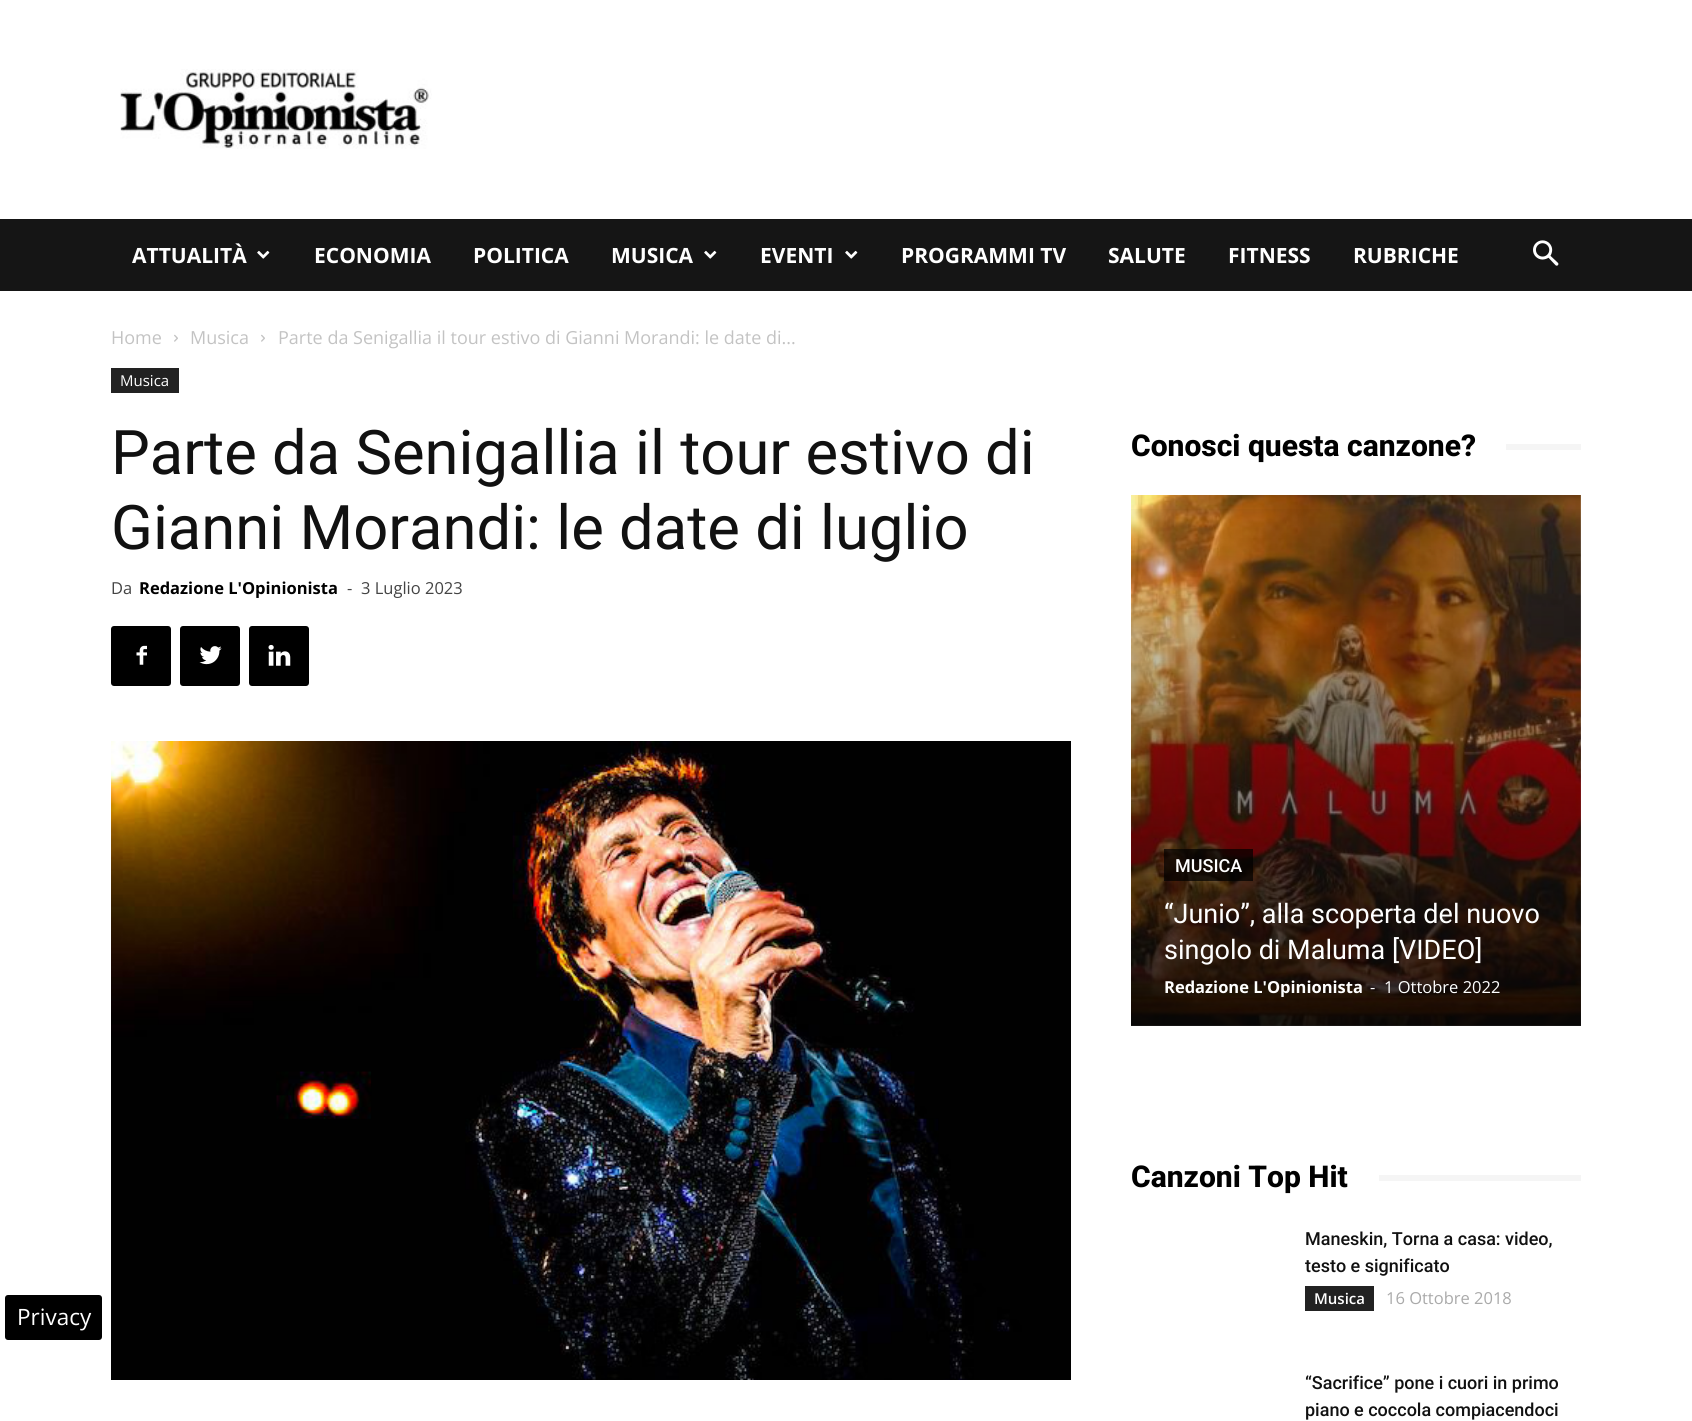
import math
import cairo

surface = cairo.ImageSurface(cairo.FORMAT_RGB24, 1692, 1421)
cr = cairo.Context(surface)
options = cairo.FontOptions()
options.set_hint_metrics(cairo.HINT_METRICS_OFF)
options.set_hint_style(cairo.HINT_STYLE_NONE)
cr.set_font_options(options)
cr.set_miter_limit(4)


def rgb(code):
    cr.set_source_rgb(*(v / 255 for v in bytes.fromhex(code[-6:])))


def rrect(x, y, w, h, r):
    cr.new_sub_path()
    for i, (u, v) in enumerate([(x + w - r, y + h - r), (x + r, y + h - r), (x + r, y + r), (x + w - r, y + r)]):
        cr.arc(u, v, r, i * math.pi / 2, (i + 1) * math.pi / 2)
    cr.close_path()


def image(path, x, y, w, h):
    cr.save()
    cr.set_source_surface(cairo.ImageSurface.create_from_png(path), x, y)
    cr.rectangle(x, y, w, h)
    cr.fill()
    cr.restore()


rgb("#ffffff")
cr.paint()
image("img/1.png", 120, 69, 312, 80)
rgb("#151515")
cr.rectangle(0, 219, 1692, 72)
cr.fill()
image("img/2.png", 257, 250, 13, 9)
image("img/2.png", 704, 250, 13, 9)
image("img/2.png", 845, 250, 13, 9)
image("img/3.png", 1533, 240, 26, 26)
rgb("#000000")
rrect(5, 1295, 97, 45, 3)
cr.fill()
image("img/4.png", 174, 334, 4, 8)
image("img/4.png", 261, 334, 4, 8)
rgb("#222222")
cr.rectangle(111, 368, 68, 25)
cr.fill()
rgb("#000000")
rrect(111, 626, 60, 60, 3)
cr.fill()
image("img/5.png", 136, 645, 11, 20)
rrect(180, 626, 60, 60, 3)
cr.fill()
image("img/6.png", 199, 646, 23, 19)
rrect(249, 626, 60, 60, 3)
cr.fill()
image("img/7.png", 268, 644, 23, 22)
image("img/8.png", 111, 741, 960, 639)
rgb("#f5f5f5")
cr.rectangle(1506, 444, 75, 6)
cr.fill()
image("img/9.png", 1131, 495, 450, 531)
gradient = cairo.LinearGradient(1356, 495, 1356, 1026)
gradient.add_color_stop_rgba(0, 0, 0, 0, 0)
gradient.add_color_stop_rgba(1, 0, 0, 0, 0.8)
cr.set_source(gradient)
cr.rectangle(1131, 509, 450, 517)
cr.fill()
cr.set_source_rgba(0, 0, 0, 0.7)
cr.rectangle(1164, 849, 89, 32)
cr.fill()
rgb("#f5f5f5")
cr.rectangle(1379, 1175, 202, 6)
cr.fill()
rgb("#222222")
cr.rectangle(1305, 1286, 69, 25)
cr.fill()
cr.select_font_face("Open Sans", cairo.FONT_SLANT_NORMAL, cairo.FONT_WEIGHT_BOLD)
cr.set_font_size(21)
rgb("#ffffff")
for x, y, s in [
    (132, 263, "ATTUALITÀ"),
    (314, 263, "ECONOMIA"),
    (473, 263, "POLITICA"),
    (611, 263, "MUSICA"),
    (760, 263, "EVENTI"),
    (901, 263, "PROGRAMMI TV"),
    (1108, 263, "SALUTE"),
    (1228, 263, "FITNESS"),
    (1353, 263, "RUBRICHE"),
]:
    cr.move_to(x, y)
    cr.show_text(s)
cr.select_font_face("Open Sans")
cr.set_font_size(22.5)
cr.move_to(17, 1325)
cr.show_text("Privacy")
cr.set_font_size(18)
rgb("#c3c3c3")
for x, y, s in [
    (111, 344, "Home"),
    (190, 344, "Musica"),
    (278, 344, "Parte da Senigallia il tour estivo di Gianni Morandi: le date di..."),
]:
    cr.move_to(x, y)
    cr.show_text(s)
cr.set_font_size(15)
rgb("#ffffff")
cr.move_to(120, 386)
cr.show_text("Musica")
cr.select_font_face("Roboto")
cr.set_font_size(61.5)
rgb("#111111")
cr.move_to(111, 474)
cr.show_text("Parte da Senigallia il tour estivo di")
cr.move_to(111, 549)
cr.show_text("Gianni Morandi: le date di luglio")
cr.select_font_face("Open Sans")
cr.set_font_size(16.5)
rgb("#444444")
cr.move_to(111, 594)
cr.show_text("Da")
cr.select_font_face("Open Sans", cairo.FONT_SLANT_NORMAL, cairo.FONT_WEIGHT_BOLD)
rgb("#000000")
cr.move_to(139, 594)
cr.show_text("Redazione L'Opinionista")
cr.select_font_face("Open Sans")
rgb("#444444")
cr.move_to(347, 594)
cr.show_text("-")
cr.move_to(361, 594)
cr.show_text("3 Luglio 2023")
cr.select_font_face("Roboto ExtraBold")
cr.set_font_size(30)
rgb("#000000")
cr.move_to(1131, 456)
cr.show_text("Conosci questa canzone?")
cr.select_font_face("Roboto Medium")
cr.set_font_size(18)
rgb("#ffffff")
cr.move_to(1175, 872)
cr.show_text("MUSICA")
cr.select_font_face("Roboto")
cr.set_font_size(27)
cr.move_to(1164, 923)
cr.show_text("“Junio”, alla scoperta del nuovo")
cr.move_to(1164, 959)
cr.show_text("singolo di Maluma [VIDEO]")
cr.select_font_face("Open Sans", cairo.FONT_SLANT_NORMAL, cairo.FONT_WEIGHT_BOLD)
cr.set_font_size(16.5)
cr.move_to(1164, 993)
cr.show_text("Redazione L'Opinionista")
cr.select_font_face("Open Sans")
cr.move_to(1370, 993)
cr.show_text("-")
cr.move_to(1384, 993)
cr.show_text("1 Ottobre 2022")
cr.select_font_face("Roboto ExtraBold")
cr.set_font_size(30)
rgb("#000000")
cr.move_to(1131, 1187)
cr.show_text("Canzoni Top Hit")
cr.select_font_face("Roboto Medium")
cr.set_font_size(18)
rgb("#111111")
cr.move_to(1305, 1245)
cr.show_text("Maneskin, Torna a casa: video,")
cr.move_to(1305, 1272)
cr.show_text("testo e significato")
cr.select_font_face("Open Sans SemiBold")
cr.set_font_size(15)
rgb("#ffffff")
cr.move_to(1314, 1304)
cr.show_text("Musica")
cr.select_font_face("Open Sans")
cr.set_font_size(16.5)
rgb("#aaaaaa")
cr.move_to(1386, 1304)
cr.show_text("16 Ottobre 2018")
cr.select_font_face("Roboto Medium")
cr.set_font_size(18)
rgb("#111111")
cr.move_to(1305, 1389)
cr.show_text("“Sacrifice” pone i cuori in primo")
cr.move_to(1305, 1416)
cr.show_text("piano e coccola compiacendoci")
surface.write_to_png("page.png")
